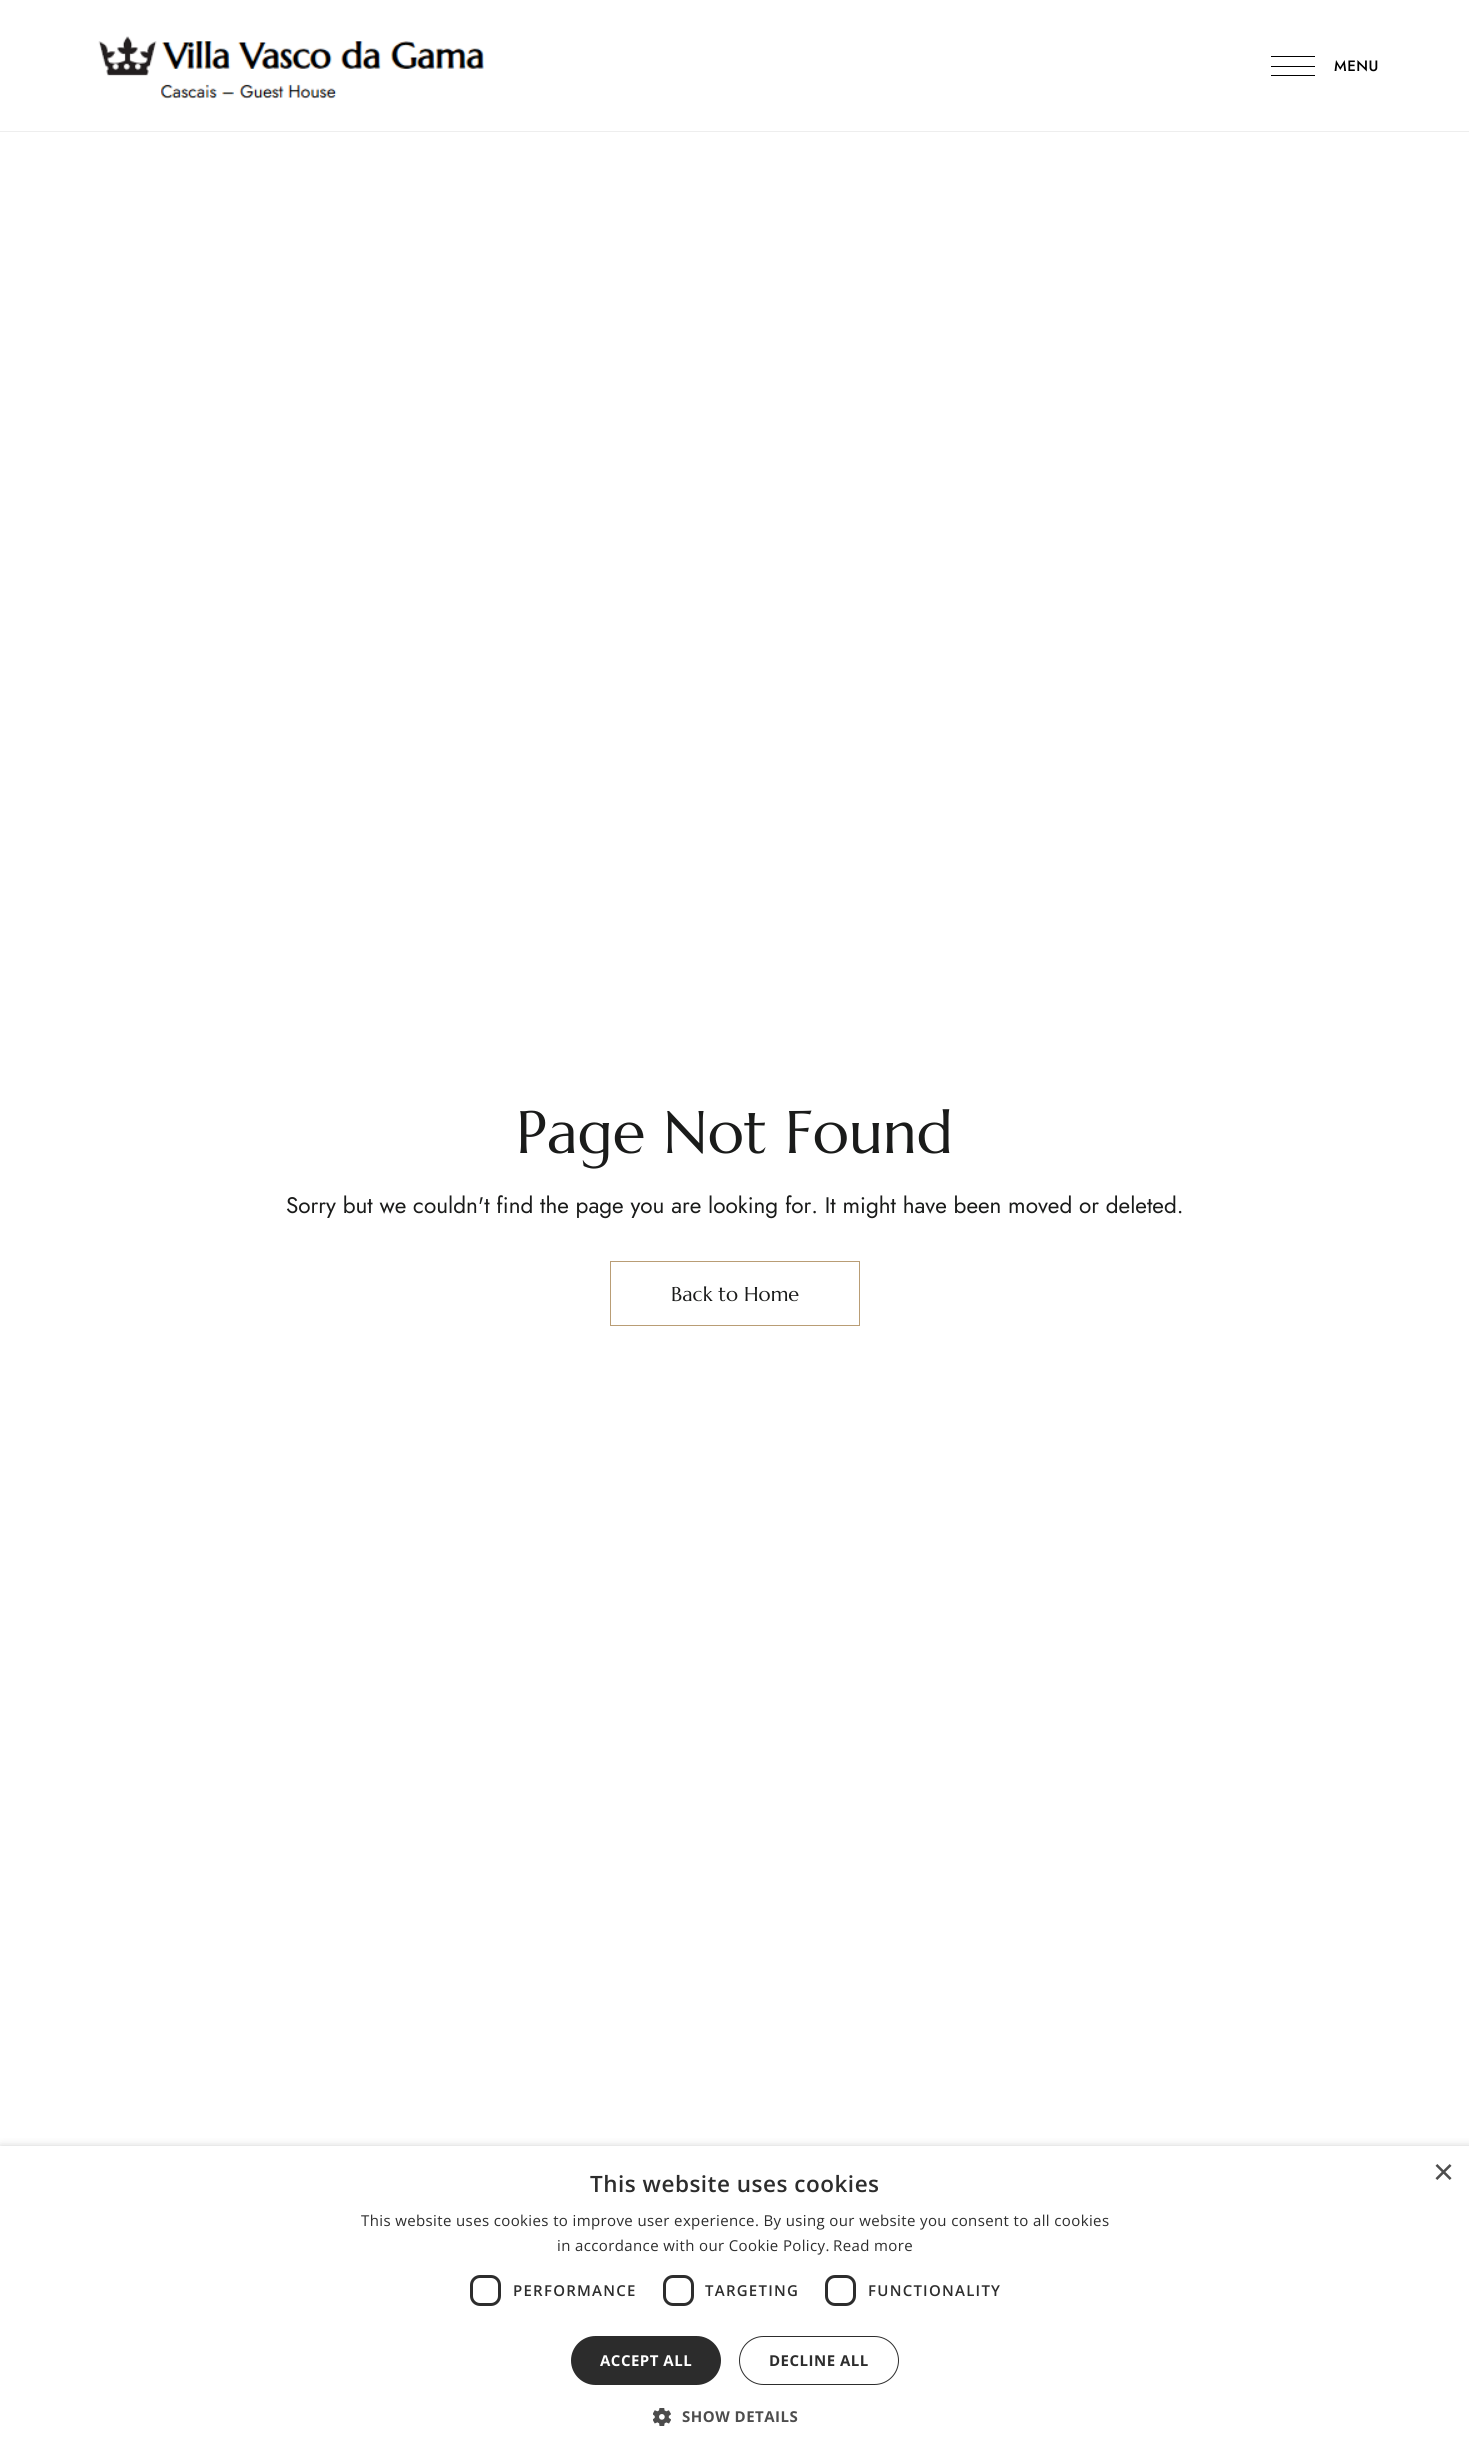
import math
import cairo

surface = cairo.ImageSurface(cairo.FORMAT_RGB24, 1469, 2458)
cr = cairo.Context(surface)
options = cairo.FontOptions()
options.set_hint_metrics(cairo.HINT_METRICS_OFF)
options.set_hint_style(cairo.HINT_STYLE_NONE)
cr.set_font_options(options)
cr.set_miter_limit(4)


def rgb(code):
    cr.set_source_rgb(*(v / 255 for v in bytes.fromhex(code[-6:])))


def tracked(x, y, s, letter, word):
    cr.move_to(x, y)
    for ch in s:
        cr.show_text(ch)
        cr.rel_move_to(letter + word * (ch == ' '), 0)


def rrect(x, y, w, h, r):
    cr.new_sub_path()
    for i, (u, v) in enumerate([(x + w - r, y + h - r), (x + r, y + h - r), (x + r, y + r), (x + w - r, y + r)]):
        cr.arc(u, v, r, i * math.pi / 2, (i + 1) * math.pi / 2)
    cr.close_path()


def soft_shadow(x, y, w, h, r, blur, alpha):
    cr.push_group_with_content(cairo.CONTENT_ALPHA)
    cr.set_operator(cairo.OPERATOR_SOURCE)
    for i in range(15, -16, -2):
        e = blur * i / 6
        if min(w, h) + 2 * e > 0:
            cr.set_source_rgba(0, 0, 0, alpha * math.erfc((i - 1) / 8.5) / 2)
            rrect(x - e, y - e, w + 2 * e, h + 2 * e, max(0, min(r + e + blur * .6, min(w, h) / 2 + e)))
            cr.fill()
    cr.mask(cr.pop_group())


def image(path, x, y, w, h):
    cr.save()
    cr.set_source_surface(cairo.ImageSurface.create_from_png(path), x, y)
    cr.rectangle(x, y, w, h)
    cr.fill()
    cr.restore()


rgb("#ffffff")
cr.paint()
rgb("#eeeeee")
cr.rectangle(0, 131, 1469, 1)
cr.fill()
image("img/1.png", 98, 36, 386, 63)
for x, y, w, h, color in [
    (1271, 56, 44, 1, "#000000"),
    (1271, 75, 44, 1, "#000000"),
    (1271, 66, 44, 1, "#000000"),
]:
    rgb(color)
    cr.rectangle(x, y, w, h)
    cr.fill()
cr.rectangle(610.5, 1261.5, 249, 64)
rgb("#b99d75")
cr.set_line_width(1)
cr.stroke()
rgb("#000000")
soft_shadow(1, 2149, 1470, 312, 0, 5, 0.35)
rgb("#ffffff")
cr.rectangle(0, 2146, 1469, 312)
cr.fill()
rrect(471.5, 2276.5, 28, 28, 8.5)
rgb("#2d2d2d")
cr.set_line_width(3)
cr.stroke()
rrect(664.5, 2276.5, 28, 28, 8.5)
cr.stroke()
rrect(826.5, 2276.5, 28, 28, 8.5)
cr.stroke()
rgb("#2c2c2c")
rrect(571, 2336, 150, 49, 24.5)
cr.fill()
rrect(739.5, 2336.5, 159, 48, 24)
rgb("#2d2d2d")
cr.set_line_width(1)
cr.stroke()
image("img/2.png", 653, 2408, 18, 18)
cr.select_font_face("Jost Medium")
cr.set_font_size(15)
rgb("#000000")
tracked(1334, 71, "MENU", 0.5, 0)
cr.select_font_face("Marcellus")
cr.set_font_size(60)
rgb("#1a1b1a")
cr.move_to(516, 1153)
cr.show_text("Page Not Found")
cr.select_font_face("Jost")
cr.set_font_size(22.5)
cr.move_to(286, 1213)
cr.show_text("Sorry but we couldn't find the page you are looking for. It might have been moved or deleted.")
cr.select_font_face("Marcellus")
cr.set_font_size(20)
cr.move_to(671, 1301)
cr.show_text("Back to Home")
cr.select_font_face("Liberation Sans")
cr.set_font_size(36)
rgb("#4d4d4d")
cr.move_to(1433, 2184)
cr.show_text("×")
cr.select_font_face("Open Sans SemiBold")
cr.set_font_size(22.5)
rgb("#2d2d2d")
tracked(590, 2192, "This website uses cookies", 0.5, 0)
cr.select_font_face("Open Sans")
cr.set_font_size(15)
for x, y, s in [
    (361, 2226, "This website uses cookies to improve user experience. By using our website you consent to all cookies"),
    (557, 2251, "in accordance with our Cookie Policy."),
    (833, 2251, "Read more"),
]:
    tracked(x, y, s, 0.38, 0)
cr.select_font_face("Open Sans SemiBold")
for x, y, s in [
    (513, 2296, "PERFORMANCE"),
    (705, 2296, "TARGETING"),
    (868, 2296, "FUNCTIONALITY"),
]:
    tracked(x, y, s, 1.25, 0)
cr.select_font_face("Open Sans", cairo.FONT_SLANT_NORMAL, cairo.FONT_WEIGHT_BOLD)
rgb("#ffffff")
tracked(600, 2366, "ACCEPT ALL", 0.5, 0)
rgb("#2d2d2d")
tracked(769, 2366, "DECLINE ALL", 0.5, 0)
rgb("#4d4d4d")
tracked(682, 2422, "SHOW DETAILS", 0.5, 0)
surface.write_to_png("page.png")
